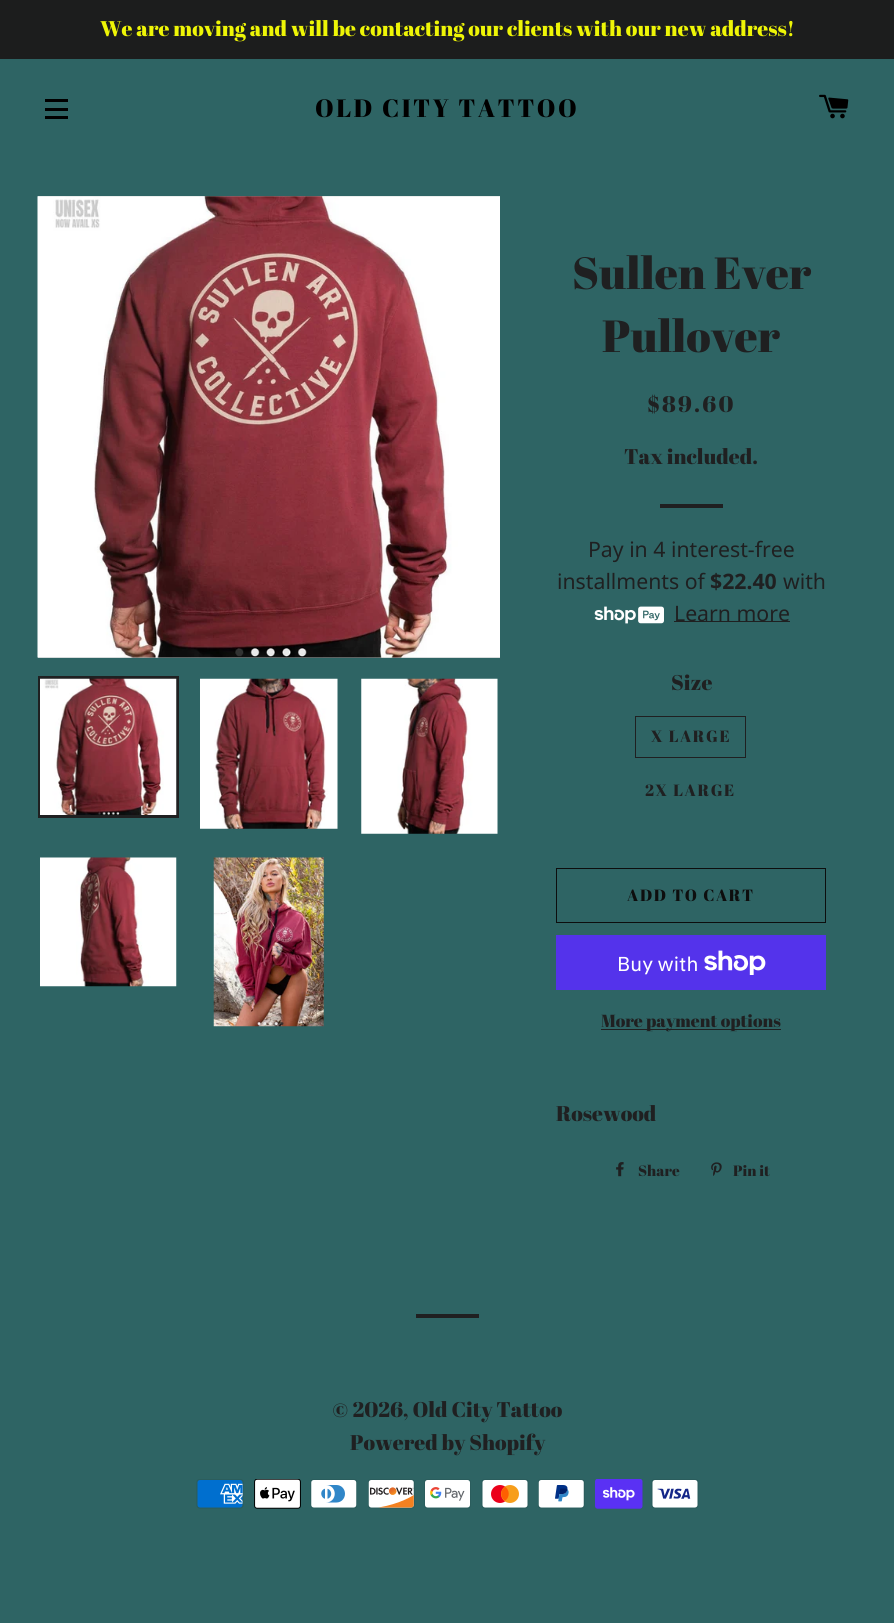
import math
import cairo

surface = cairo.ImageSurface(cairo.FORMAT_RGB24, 894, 1623)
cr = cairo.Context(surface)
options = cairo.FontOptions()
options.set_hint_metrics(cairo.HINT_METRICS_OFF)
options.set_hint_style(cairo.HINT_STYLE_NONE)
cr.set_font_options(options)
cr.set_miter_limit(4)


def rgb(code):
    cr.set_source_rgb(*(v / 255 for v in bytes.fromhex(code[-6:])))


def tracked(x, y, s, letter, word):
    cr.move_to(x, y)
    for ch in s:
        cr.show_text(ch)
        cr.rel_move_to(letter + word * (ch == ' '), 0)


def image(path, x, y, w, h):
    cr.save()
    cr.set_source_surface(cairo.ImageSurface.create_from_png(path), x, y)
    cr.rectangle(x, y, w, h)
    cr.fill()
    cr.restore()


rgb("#2e6464")
cr.paint()
for x, y, w, h, color in [
    (0, 0, 894, 59, "#1c1d1d"),
    (45, 99, 23, 3, "#000000"),
    (45, 108, 23, 3, "#000000"),
    (45, 116, 23, 3, "#000000"),
]:
    rgb(color)
    cr.rectangle(x, y, w, h)
    cr.fill()
image("img/1.png", 819, 94, 30, 25)
rgb("#acb9b8")
cr.rectangle(38, 196, 462, 462)
cr.fill()
image("img/2.png", 37, 196, 463, 462)
cr.rectangle(39.5, 677.5, 138, 139)
rgb("#1f2021")
cr.set_line_width(3)
cr.stroke()
image("img/3.png", 40, 678, 137, 137)
image("img/4.png", 200, 678, 138, 151)
image("img/5.png", 361, 678, 137, 156)
image("img/6.png", 40, 857, 137, 130)
image("img/7.png", 213, 857, 111, 170)
cr.rectangle(660, 504, 63, 4)
cr.fill()
image("img/8.png", 594, 606, 70, 18)
cr.rectangle(674, 621, 116, 1)
cr.fill()
cr.rectangle(635.5, 716.5, 110, 41)
cr.set_line_width(1)
cr.stroke()
cr.rectangle(556.5, 868.5, 269, 54)
rgb("#0d0e0e")
cr.stroke()
rgb("#5433eb")
cr.rectangle(556, 935, 270, 55)
cr.fill()
image("img/9.png", 704, 950, 62, 25)
rgb("#1f2021")
cr.rectangle(601, 1029, 180, 1)
cr.fill()
image("img/10.png", 616, 1162, 8, 15)
image("img/11.png", 711, 1162, 11, 14)
cr.rectangle(416, 1314, 63, 4)
cr.fill()
image("img/12.png", 196, 1479, 48, 30)
image("img/13.png", 254, 1479, 47, 30)
image("img/14.png", 310, 1479, 47, 30)
image("img/15.png", 368, 1479, 47, 30)
image("img/16.png", 424, 1479, 47, 30)
image("img/17.png", 481, 1479, 48, 30)
image("img/18.png", 538, 1479, 47, 30)
image("img/19.png", 595, 1479, 48, 30)
image("img/20.png", 651, 1479, 48, 30)
cr.select_font_face("Abril Fatface")
cr.set_font_size(21.25)
rgb("#eef506")
cr.move_to(100, 36)
cr.show_text("We are moving and will be contacting our clients with our new address!")
cr.set_font_size(25)
rgb("#000000")
tracked(315, 117, "OLD CITY TATTOO", 2.5, 0)
cr.set_font_size(45)
rgb("#1f2021")
cr.move_to(572, 289)
cr.show_text("Sullen Ever")
cr.move_to(602, 352)
cr.show_text("Pullover")
cr.set_font_size(22.5)
tracked(647, 412, "$89.60", 2.25, 0)
cr.set_font_size(21.25)
cr.move_to(624, 464)
cr.show_text("Tax included.")
cr.select_font_face("Noto Sans")
cr.move_to(588, 557)
cr.show_text("Pay in 4 interest-free")
cr.move_to(557, 589)
cr.show_text("installments of")
cr.select_font_face("Noto Sans", cairo.FONT_SLANT_NORMAL, cairo.FONT_WEIGHT_BOLD)
cr.move_to(710, 589)
cr.show_text("$22.40")
cr.select_font_face("Noto Sans")
cr.move_to(783, 589)
cr.show_text("with")
cr.move_to(674, 621)
cr.show_text("Learn more")
cr.select_font_face("Abril Fatface")
cr.move_to(671, 690)
cr.show_text("Size")
cr.set_font_size(16.25)
tracked(651, 742, "X LARGE", 1.6, 0)
tracked(645, 796, "2X LARGE", 1.6, 0)
rgb("#0d0e0e")
tracked(627, 901, "ADD TO CART", 1.6, 0)
cr.select_font_face("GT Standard")
cr.set_font_size(20)
rgb("#ffffff")
cr.move_to(617, 971)
cr.show_text("Buy with")
cr.select_font_face("Abril Fatface")
cr.set_font_size(17.5)
rgb("#1f2021")
cr.move_to(601, 1027)
cr.show_text("More payment options")
cr.set_font_size(21.25)
cr.move_to(556, 1121)
cr.show_text("Rosewood")
cr.set_font_size(15)
cr.move_to(638, 1176)
cr.show_text("Share")
cr.move_to(733, 1176)
cr.show_text("Pin it")
cr.set_font_size(21.25)
cr.move_to(332, 1417)
cr.show_text("© 2026, Old City Tattoo")
cr.move_to(350, 1450)
cr.show_text("Powered by Shopify")
surface.write_to_png("page.png")
